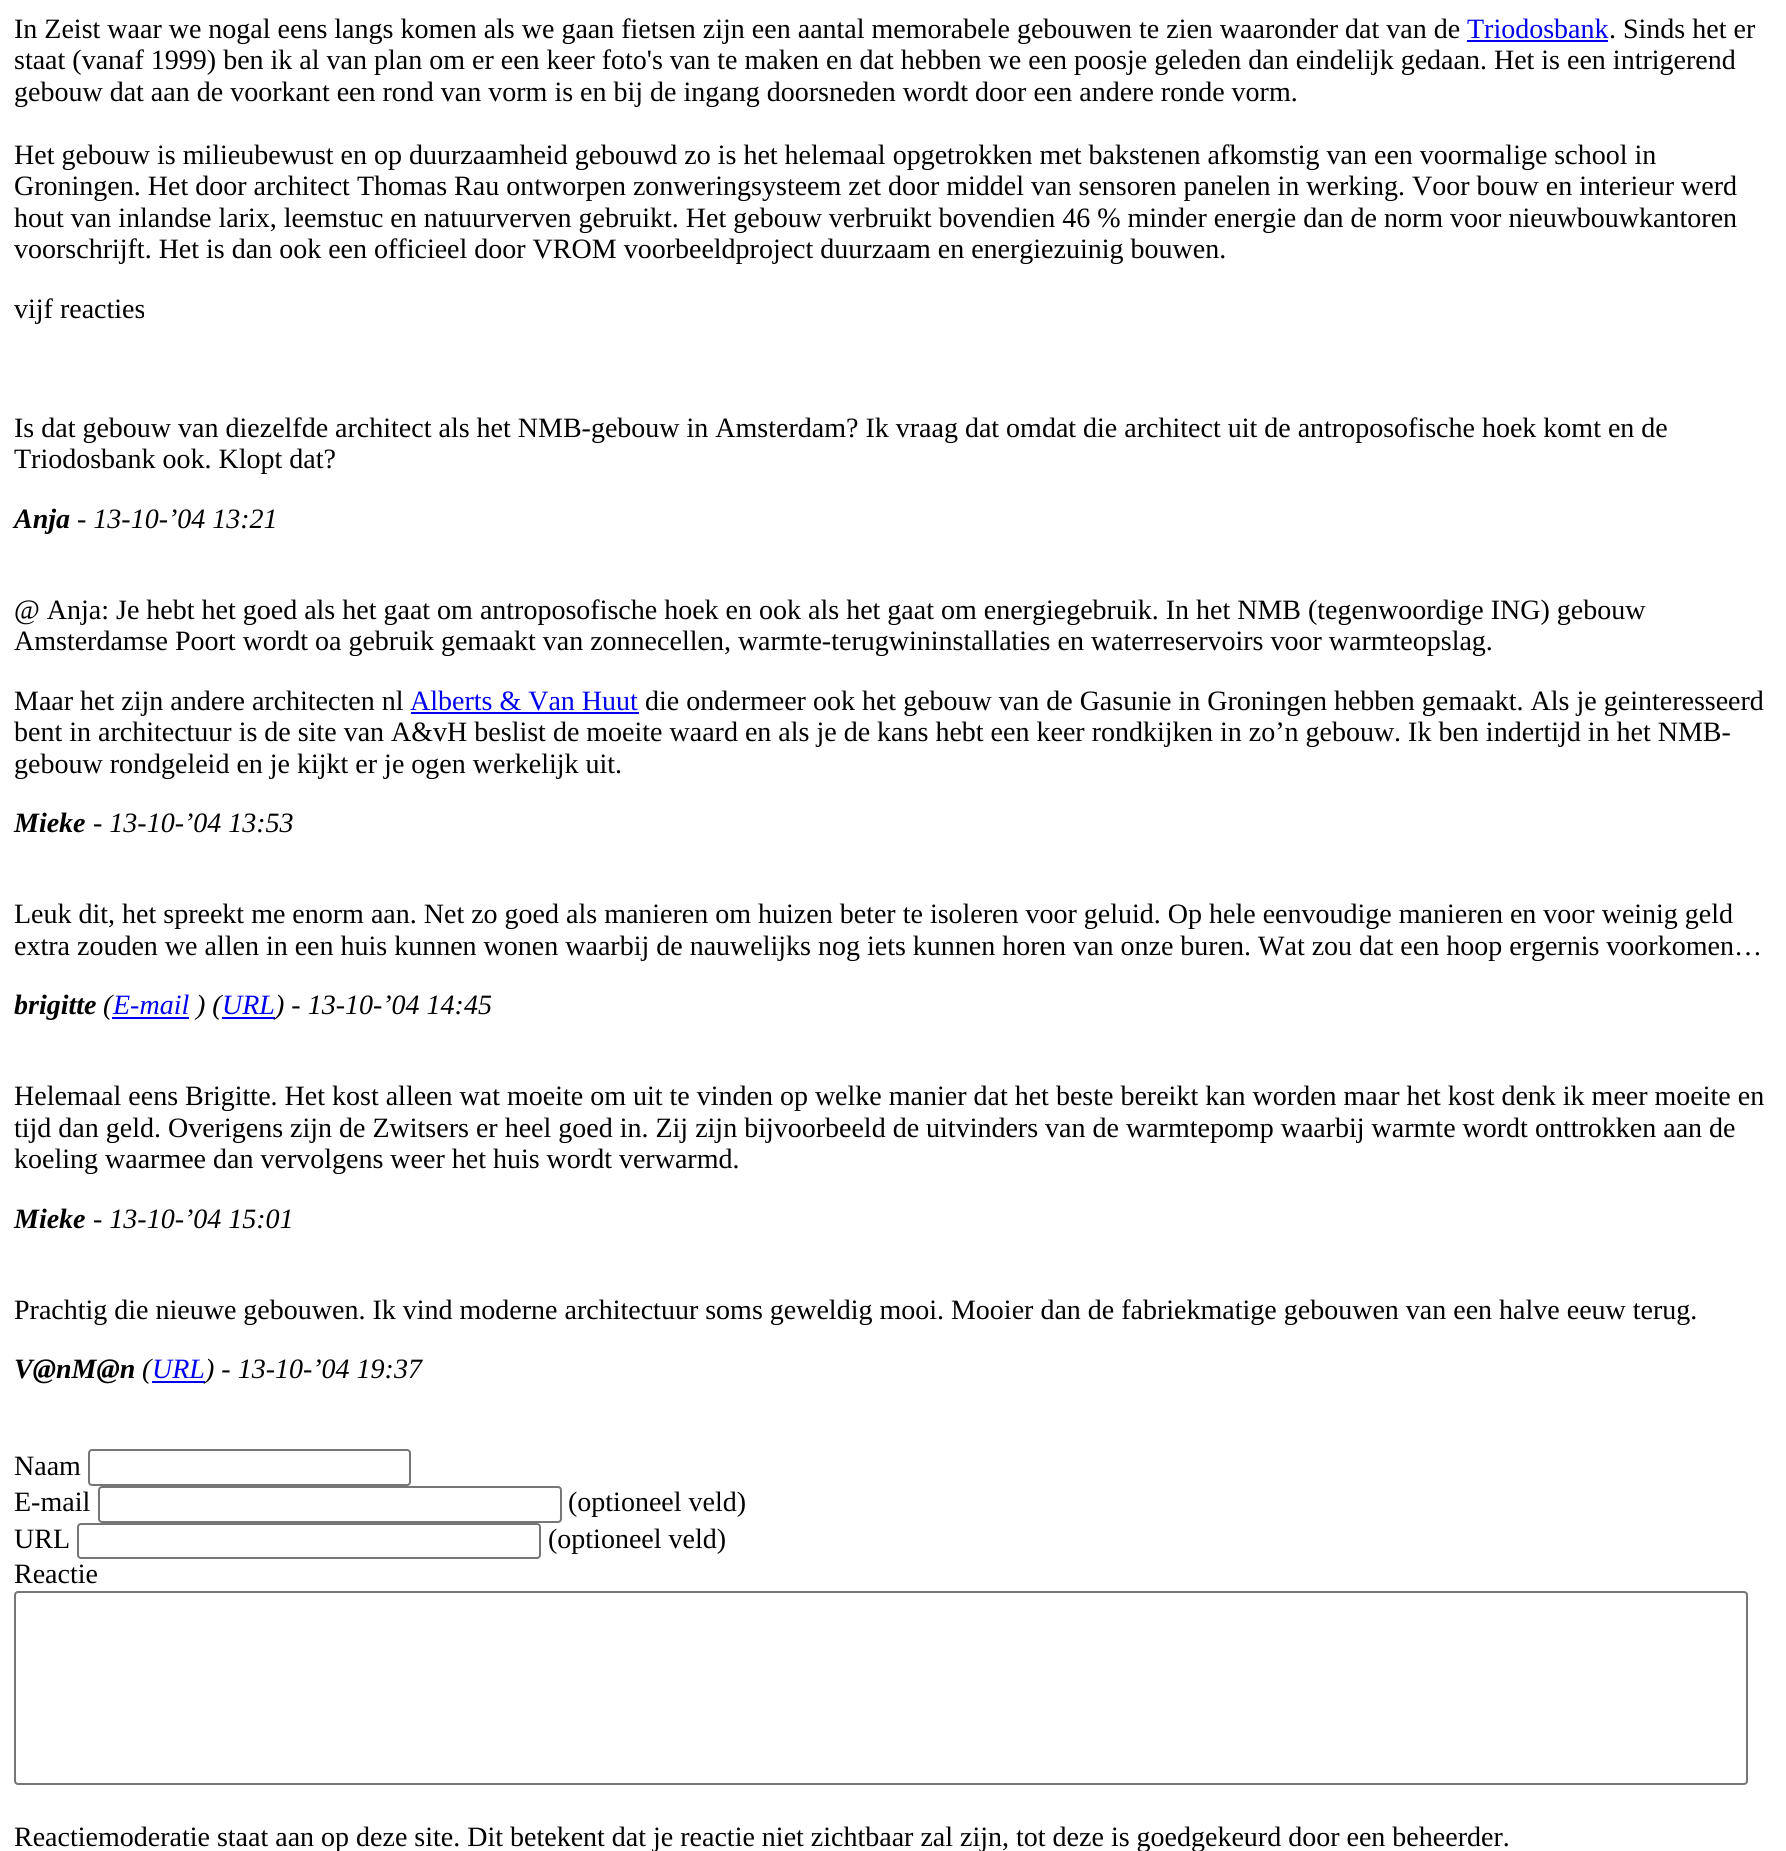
import math
import cairo

surface = cairo.ImageSurface(cairo.FORMAT_RGB24, 1786, 1851)
cr = cairo.Context(surface)
options = cairo.FontOptions()
options.set_hint_metrics(cairo.HINT_METRICS_OFF)
options.set_hint_style(cairo.HINT_STYLE_NONE)
cr.set_font_options(options)
cr.set_miter_limit(4)


def rgb(code):
    cr.set_source_rgb(*(v / 255 for v in bytes.fromhex(code[-6:])))


def rrect(x, y, w, h, r):
    cr.new_sub_path()
    for i, (u, v) in enumerate([(x + w - r, y + h - r), (x + r, y + h - r), (x + r, y + r), (x + w - r, y + r)]):
        cr.arc(u, v, r, i * math.pi / 2, (i + 1) * math.pi / 2)
    cr.close_path()


rgb("#ffffff")
cr.paint()
rgb("#0000ee")
cr.rectangle(1467, 40, 141, 2)
cr.fill()
cr.rectangle(411, 712, 228, 2)
cr.fill()
rrect(89, 1450, 321, 35, 3)
rgb("#767676")
cr.stroke()
rrect(99, 1487, 462, 35, 3)
cr.stroke()
rrect(78, 1524, 462, 34, 3)
cr.stroke()
rrect(15, 1592, 1732, 192, 3)
cr.stroke()
cr.select_font_face("Liberation Serif")
cr.set_font_size(28)
rgb("#000000")
cr.move_to(14, 38)
cr.show_text("In Zeist waar we nogal eens langs komen als we gaan fietsen zijn een aantal memorabele gebouwen te zien waaronder dat van de")
rgb("#0000ee")
cr.move_to(1467, 38)
cr.show_text("Triodosbank")
rgb("#000000")
for x, y, s in [
    (1609, 38, ". Sinds het er"),
    (14, 69, "staat (vanaf 1999) ben ik al van plan om er een keer foto's van te maken en dat hebben we een poosje geleden dan eindelijk gedaan. Het is een intrigerend"),
    (14, 101, "gebouw dat aan de voorkant een rond van vorm is en bij de ingang doorsneden wordt door een andere ronde vorm."),
    (14, 164, "Het gebouw is milieubewust en op duurzaamheid gebouwd zo is het helemaal opgetrokken met bakstenen afkomstig van een voormalige school in"),
    (14, 195, "Groningen. Het door architect Thomas Rau ontworpen zonweringsysteem zet door middel van sensoren panelen in werking. Voor bouw en interieur werd"),
    (14, 227, "hout van inlandse larix, leemstuc en natuurverven gebruikt. Het gebouw verbruikt bovendien 46 % minder energie dan de norm voor nieuwbouwkantoren"),
    (14, 258, "voorschrijft. Het is dan ook een officieel door VROM voorbeeldproject duurzaam en energiezuinig bouwen."),
    (14, 318, "vijf reacties"),
    (14, 437, "Is dat gebouw van diezelfde architect als het NMB-gebouw in Amsterdam? Ik vraag dat omdat die architect uit de antroposofische hoek komt en de"),
    (14, 468, "Triodosbank ook. Klopt dat?"),
]:
    cr.move_to(x, y)
    cr.show_text(s)
cr.select_font_face("Liberation Serif", cairo.FONT_SLANT_ITALIC, cairo.FONT_WEIGHT_BOLD)
cr.move_to(14, 528)
cr.show_text("Anja")
cr.select_font_face("Liberation Serif", cairo.FONT_SLANT_ITALIC)
cr.move_to(77, 528)
cr.show_text("- 13-10-’04 13:21")
cr.select_font_face("Liberation Serif")
for x, y, s in [
    (14, 619, "@ Anja: Je hebt het goed als het gaat om antroposofische hoek en ook als het gaat om energiegebruik. In het NMB (tegenwoordige ING) gebouw"),
    (14, 650, "Amsterdamse Poort wordt oa gebruik gemaakt van zonnecellen, warmte-terugwininstallaties en waterreservoirs voor warmteopslag."),
    (14, 710, "Maar het zijn andere architecten nl"),
]:
    cr.move_to(x, y)
    cr.show_text(s)
rgb("#0000ee")
cr.move_to(410, 710)
cr.show_text("Alberts & Van Huut")
rgb("#000000")
for x, y, s in [
    (645, 710, "die ondermeer ook het gebouw van de Gasunie in Groningen hebben gemaakt. Als je geinteresseerd"),
    (14, 741, "bent in architectuur is de site van A&vH beslist de moeite waard en als je de kans hebt een keer rondkijken in zo’n gebouw. Ik ben indertijd in het NMB-"),
    (14, 773, "gebouw rondgeleid en je kijkt er je ogen werkelijk uit."),
]:
    cr.move_to(x, y)
    cr.show_text(s)
cr.select_font_face("Liberation Serif", cairo.FONT_SLANT_ITALIC, cairo.FONT_WEIGHT_BOLD)
cr.move_to(14, 832)
cr.show_text("Mieke")
cr.select_font_face("Liberation Serif", cairo.FONT_SLANT_ITALIC)
cr.move_to(93, 832)
cr.show_text("- 13-10-’04 13:53")
cr.select_font_face("Liberation Serif")
cr.move_to(14, 923)
cr.show_text("Leuk dit, het spreekt me enorm aan. Net zo goed als manieren om huizen beter te isoleren voor geluid. Op hele eenvoudige manieren en voor weinig geld")
cr.move_to(14, 955)
cr.show_text("extra zouden we allen in een huis kunnen wonen waarbij de nauwelijks nog iets kunnen horen van onze buren. Wat zou dat een hoop ergernis voorkomen…")
cr.select_font_face("Liberation Serif", cairo.FONT_SLANT_ITALIC, cairo.FONT_WEIGHT_BOLD)
cr.move_to(14, 1014)
cr.show_text("brigitte")
cr.select_font_face("Liberation Serif", cairo.FONT_SLANT_ITALIC)
cr.move_to(103, 1014)
cr.show_text("(")
rgb("#0000ee")
cr.rectangle(112, 1017, 77, 2)
cr.fill()
cr.move_to(113, 1014)
cr.show_text("E-mail")
rgb("#000000")
cr.move_to(196, 1014)
cr.show_text(") (")
rgb("#0000ee")
cr.rectangle(222, 1017, 53, 2)
cr.fill()
cr.move_to(222, 1014)
cr.show_text("URL")
rgb("#000000")
cr.move_to(275, 1014)
cr.show_text(") - 13-10-’04 14:45")
cr.select_font_face("Liberation Serif")
for x, y, s in [
    (14, 1105, "Helemaal eens Brigitte. Het kost alleen wat moeite om uit te vinden op welke manier dat het beste bereikt kan worden maar het kost denk ik meer moeite en"),
    (14, 1137, "tijd dan geld. Overigens zijn de Zwitsers er heel goed in. Zij zijn bijvoorbeeld de uitvinders van de warmtepomp waarbij warmte wordt onttrokken aan de"),
    (14, 1168, "koeling waarmee dan vervolgens weer het huis wordt verwarmd."),
]:
    cr.move_to(x, y)
    cr.show_text(s)
cr.select_font_face("Liberation Serif", cairo.FONT_SLANT_ITALIC, cairo.FONT_WEIGHT_BOLD)
cr.move_to(14, 1228)
cr.show_text("Mieke")
cr.select_font_face("Liberation Serif", cairo.FONT_SLANT_ITALIC)
cr.move_to(93, 1228)
cr.show_text("- 13-10-’04 15:01")
cr.select_font_face("Liberation Serif")
cr.move_to(14, 1319)
cr.show_text("Prachtig die nieuwe gebouwen. Ik vind moderne architectuur soms geweldig mooi. Mooier dan de fabriekmatige gebouwen van een halve eeuw terug.")
cr.select_font_face("Liberation Serif", cairo.FONT_SLANT_ITALIC, cairo.FONT_WEIGHT_BOLD)
cr.move_to(14, 1378)
cr.show_text("V@nM@n")
cr.select_font_face("Liberation Serif", cairo.FONT_SLANT_ITALIC)
cr.move_to(142, 1378)
cr.show_text("(")
rgb("#0000ee")
cr.rectangle(152, 1381, 53, 2)
cr.fill()
cr.move_to(152, 1378)
cr.show_text("URL")
rgb("#000000")
cr.move_to(205, 1378)
cr.show_text(") - 13-10-’04 19:37")
cr.select_font_face("Liberation Serif")
for x, y, s in [
    (14, 1475, "Naam"),
    (14, 1511, "E-mail"),
    (568, 1511, "(optioneel veld)"),
    (14, 1548, "URL"),
    (548, 1548, "(optioneel veld)"),
    (14, 1583, "Reactie"),
    (14, 1846, "Reactiemoderatie staat aan op deze site. Dit betekent dat je reactie niet zichtbaar zal zijn, tot deze is goedgekeurd door een beheerder."),
]:
    cr.move_to(x, y)
    cr.show_text(s)
surface.write_to_png("page.png")
